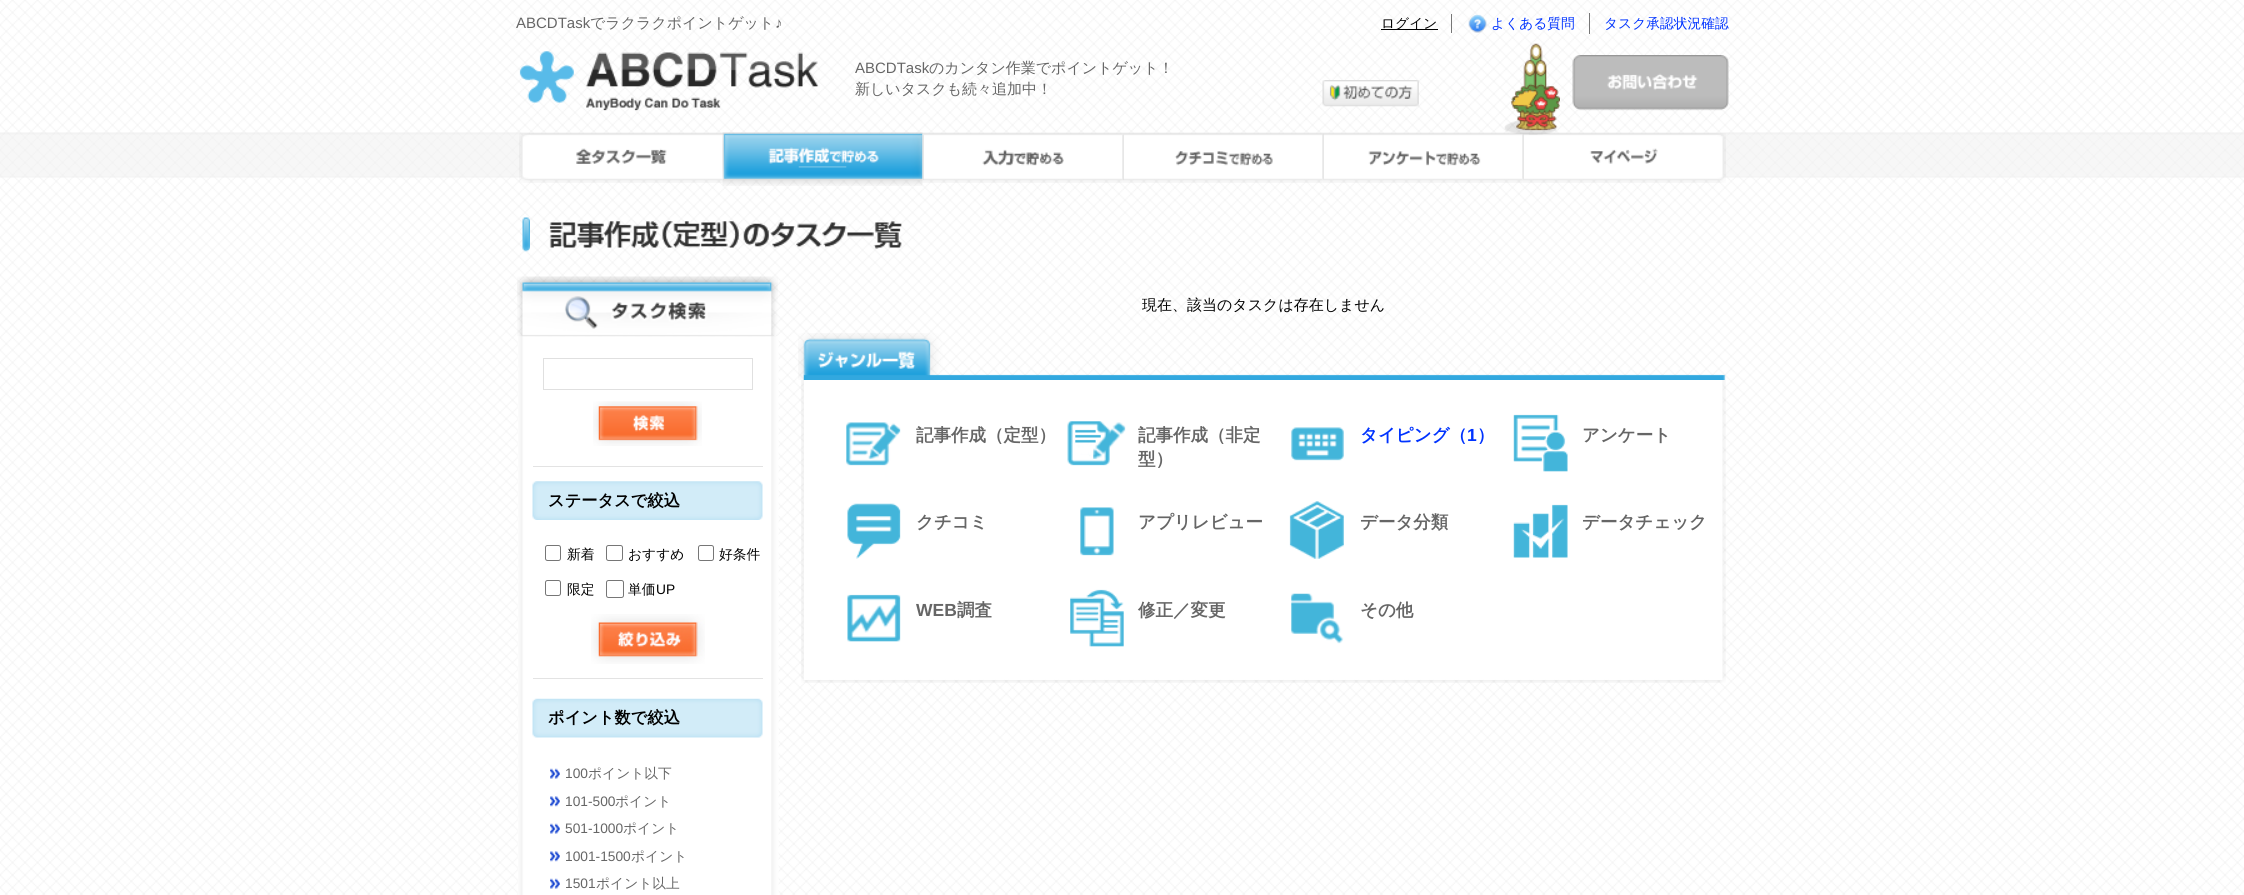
import math
import cairo

surface = cairo.ImageSurface(cairo.FORMAT_RGB24, 2244, 895)
cr = cairo.Context(surface)
options = cairo.FontOptions()
options.set_hint_metrics(cairo.HINT_METRICS_OFF)
options.set_hint_style(cairo.HINT_STYLE_NONE)
cr.set_font_options(options)
cr.set_miter_limit(4)


def rgb(code):
    cr.set_source_rgb(*(v / 255 for v in bytes.fromhex(code[-6:])))


def rrect(x, y, w, h, r):
    cr.new_sub_path()
    for i, (u, v) in enumerate([(x + w - r, y + h - r), (x + r, y + h - r), (x + r, y + r), (x + w - r, y + r)]):
        cr.arc(u, v, r, i * math.pi / 2, (i + 1) * math.pi / 2)
    cr.close_path()


def image(path, x, y, w, h):
    cr.save()
    cr.set_source_surface(cairo.ImageSurface.create_from_png(path), x, y)
    cr.rectangle(x, y, w, h)
    cr.fill()
    cr.restore()


rgb("#ffffff")
cr.paint()
image("img/1.png", 0, 0, 2244, 895)
for x, y, w, h, color in [
    (1451, 14, 1, 19, "#777777"),
    (1381, 29, 57, 1, "#000000"),
    (1589, 13, 1, 21, "#777777"),
]:
    rgb(color)
    cr.rectangle(x, y, w, h)
    cr.fill()
image("img/2.png", 1468, 14, 19, 19)
image("img/3.png", 519, 51, 300, 60)
image("img/4.png", 1322, 80, 97, 27)
image("img/7.png", 0, 132, 2244, 46)
image("img/8.png", 519, 133, 204, 50)
image("img/9.png", 722, 132, 201, 54)
image("img/10.png", 922, 133, 201, 50)
image("img/11.png", 1122, 133, 201, 50)
image("img/12.png", 1322, 133, 201, 50)
image("img/13.png", 1522, 133, 204, 50)
image("img/5.png", 1504, 43, 56, 92)
image("img/6.png", 1572, 55, 157, 56)
image("img/14.png", 522, 217, 8, 35)
image("img/15.png", 549, 221, 353, 28)
image("img/16.png", 798, 333, 928, 47)
image("img/17.png", 801, 380, 925, 303)
image("img/18.png", 846, 422, 55, 44)
image("img/19.png", 1067, 421, 59, 45)
image("img/20.png", 1291, 427, 53, 34)
image("img/21.png", 1513, 414, 55, 58)
image("img/22.png", 847, 503, 54, 56)
image("img/23.png", 1080, 507, 34, 49)
image("img/24.png", 1289, 501, 55, 58)
image("img/25.png", 1513, 504, 55, 54)
image("img/26.png", 847, 594, 54, 48)
image("img/27.png", 1070, 589, 54, 58)
image("img/28.png", 1291, 593, 53, 51)
image("img/30.png", 518, 336, 261, 559)
image("img/29.png", 517, 276, 261, 61)
cr.rectangle(543.5, 358.5, 209, 31)
rgb("#e0e0e0")
cr.set_line_width(1)
cr.stroke()
image("img/31.png", 593, 401, 109, 45)
rgb("#e3e3e3")
cr.rectangle(533, 466, 230, 1)
cr.fill()
image("img/32.png", 532, 481, 231, 39)
rrect(545.5, 545.5, 15, 15, 2)
rgb("#767676")
cr.stroke()
rrect(606.5, 545.5, 16, 15, 2)
cr.stroke()
rrect(698.5, 545.5, 15, 15, 2)
cr.stroke()
rrect(545.5, 580.5, 15, 15, 2)
cr.stroke()
rrect(606.5, 580.5, 17, 17, 2)
cr.stroke()
image("img/33.png", 591, 614, 114, 50)
rgb("#e3e3e3")
cr.rectangle(533, 678, 230, 1)
cr.fill()
image("img/34.png", 532, 698, 231, 40)
image("img/35.png", 550, 768, 10, 11)
image("img/36.png", 550, 796, 10, 11)
image("img/35.png", 550, 823, 10, 11)
image("img/36.png", 550, 851, 10, 11)
image("img/35.png", 550, 878, 10, 11)
cr.select_font_face("Liberation Sans")
cr.set_font_size(15)
rgb("#666666")
cr.move_to(516, 28)
cr.show_text("ABCDTask")
cr.select_font_face("WenQuanYi Zen Hei Medium")
cr.move_to(590, 28)
cr.show_text("でラクラクポイントゲット")
cr.select_font_face("Liberation Sans")
cr.move_to(775, 28)
cr.show_text("♪")
cr.select_font_face("WenQuanYi Zen Hei Medium")
cr.set_font_size(13.75)
rgb("#000000")
cr.move_to(1381, 28)
cr.show_text("ログイン")
rgb("#0033ff")
cr.move_to(1491, 28)
cr.show_text("よくある質問")
cr.move_to(1604, 28)
cr.show_text("タスク承認状況確認")
cr.select_font_face("Liberation Sans")
cr.set_font_size(15)
rgb("#666666")
cr.move_to(855, 73)
cr.show_text("ABCDTask")
cr.select_font_face("WenQuanYi Zen Hei Medium")
cr.move_to(929, 73)
cr.show_text("のカンタン作業でポイントゲット！")
cr.move_to(855, 94)
cr.show_text("新しいタスクも続々追加中！")
rgb("#000000")
cr.move_to(1142, 310)
cr.show_text("現在、該当のタスクは存在しません")
cr.select_font_face("WenQuanYi Zen Hei", cairo.FONT_SLANT_NORMAL, cairo.FONT_WEIGHT_BOLD)
cr.set_font_size(17.5)
rgb("#666666")
for x, y, s in [
    (916, 441, "記事作成（定型）"),
    (1138, 441, "記事作成（非定"),
    (1138, 465, "型）"),
]:
    cr.move_to(x, y)
    cr.show_text(s)
rgb("#0033ff")
cr.move_to(1360, 441)
cr.show_text("タイピング（")
cr.select_font_face("Liberation Sans", cairo.FONT_SLANT_NORMAL, cairo.FONT_WEIGHT_BOLD)
cr.move_to(1467, 441)
cr.show_text("1")
cr.select_font_face("WenQuanYi Zen Hei", cairo.FONT_SLANT_NORMAL, cairo.FONT_WEIGHT_BOLD)
cr.move_to(1477, 441)
cr.show_text("）")
rgb("#666666")
for x, y, s in [
    (1582, 441, "アンケート"),
    (916, 528, "クチコミ"),
    (1138, 528, "アプリレビュー"),
    (1360, 528, "データ分類"),
    (1582, 528, "データチェック"),
]:
    cr.move_to(x, y)
    cr.show_text(s)
cr.select_font_face("Liberation Sans", cairo.FONT_SLANT_NORMAL, cairo.FONT_WEIGHT_BOLD)
cr.move_to(916, 616)
cr.show_text("WEB")
cr.select_font_face("WenQuanYi Zen Hei", cairo.FONT_SLANT_NORMAL, cairo.FONT_WEIGHT_BOLD)
for x, y, s in [
    (957, 616, "調査"),
    (1138, 616, "修正／変更"),
    (1360, 616, "その他"),
]:
    cr.move_to(x, y)
    cr.show_text(s)
cr.set_font_size(16.25)
rgb("#000000")
cr.move_to(548, 506)
cr.show_text("ステータスで絞込")
cr.select_font_face("WenQuanYi Zen Hei Medium")
cr.set_font_size(13.75)
for x, y, s in [
    (567, 559, "新着"),
    (628, 559, "おすすめ"),
    (719, 559, "好条件"),
    (567, 594, "限定"),
    (628, 594, "単価"),
]:
    cr.move_to(x, y)
    cr.show_text(s)
cr.select_font_face("Liberation Sans")
cr.move_to(656, 594)
cr.show_text("UP")
cr.select_font_face("WenQuanYi Zen Hei", cairo.FONT_SLANT_NORMAL, cairo.FONT_WEIGHT_BOLD)
cr.set_font_size(16.25)
cr.move_to(548, 723)
cr.show_text("ポイント数で絞込")
cr.select_font_face("Liberation Sans")
cr.set_font_size(13.75)
rgb("#666666")
cr.move_to(565, 778)
cr.show_text("100")
cr.select_font_face("WenQuanYi Zen Hei Medium")
cr.move_to(588, 778)
cr.show_text("ポイント以下")
cr.select_font_face("Liberation Sans")
cr.move_to(565, 806)
cr.show_text("101-500")
cr.select_font_face("WenQuanYi Zen Hei Medium")
cr.move_to(615, 806)
cr.show_text("ポイント")
cr.select_font_face("Liberation Sans")
cr.move_to(565, 833)
cr.show_text("501-1000")
cr.select_font_face("WenQuanYi Zen Hei Medium")
cr.move_to(623, 833)
cr.show_text("ポイント")
cr.select_font_face("Liberation Sans")
cr.move_to(565, 861)
cr.show_text("1001-1500")
cr.select_font_face("WenQuanYi Zen Hei Medium")
cr.move_to(631, 861)
cr.show_text("ポイント")
cr.select_font_face("Liberation Sans")
cr.move_to(565, 888)
cr.show_text("1501")
cr.select_font_face("WenQuanYi Zen Hei Medium")
cr.move_to(596, 888)
cr.show_text("ポイント以上")
surface.write_to_png("page.png")
